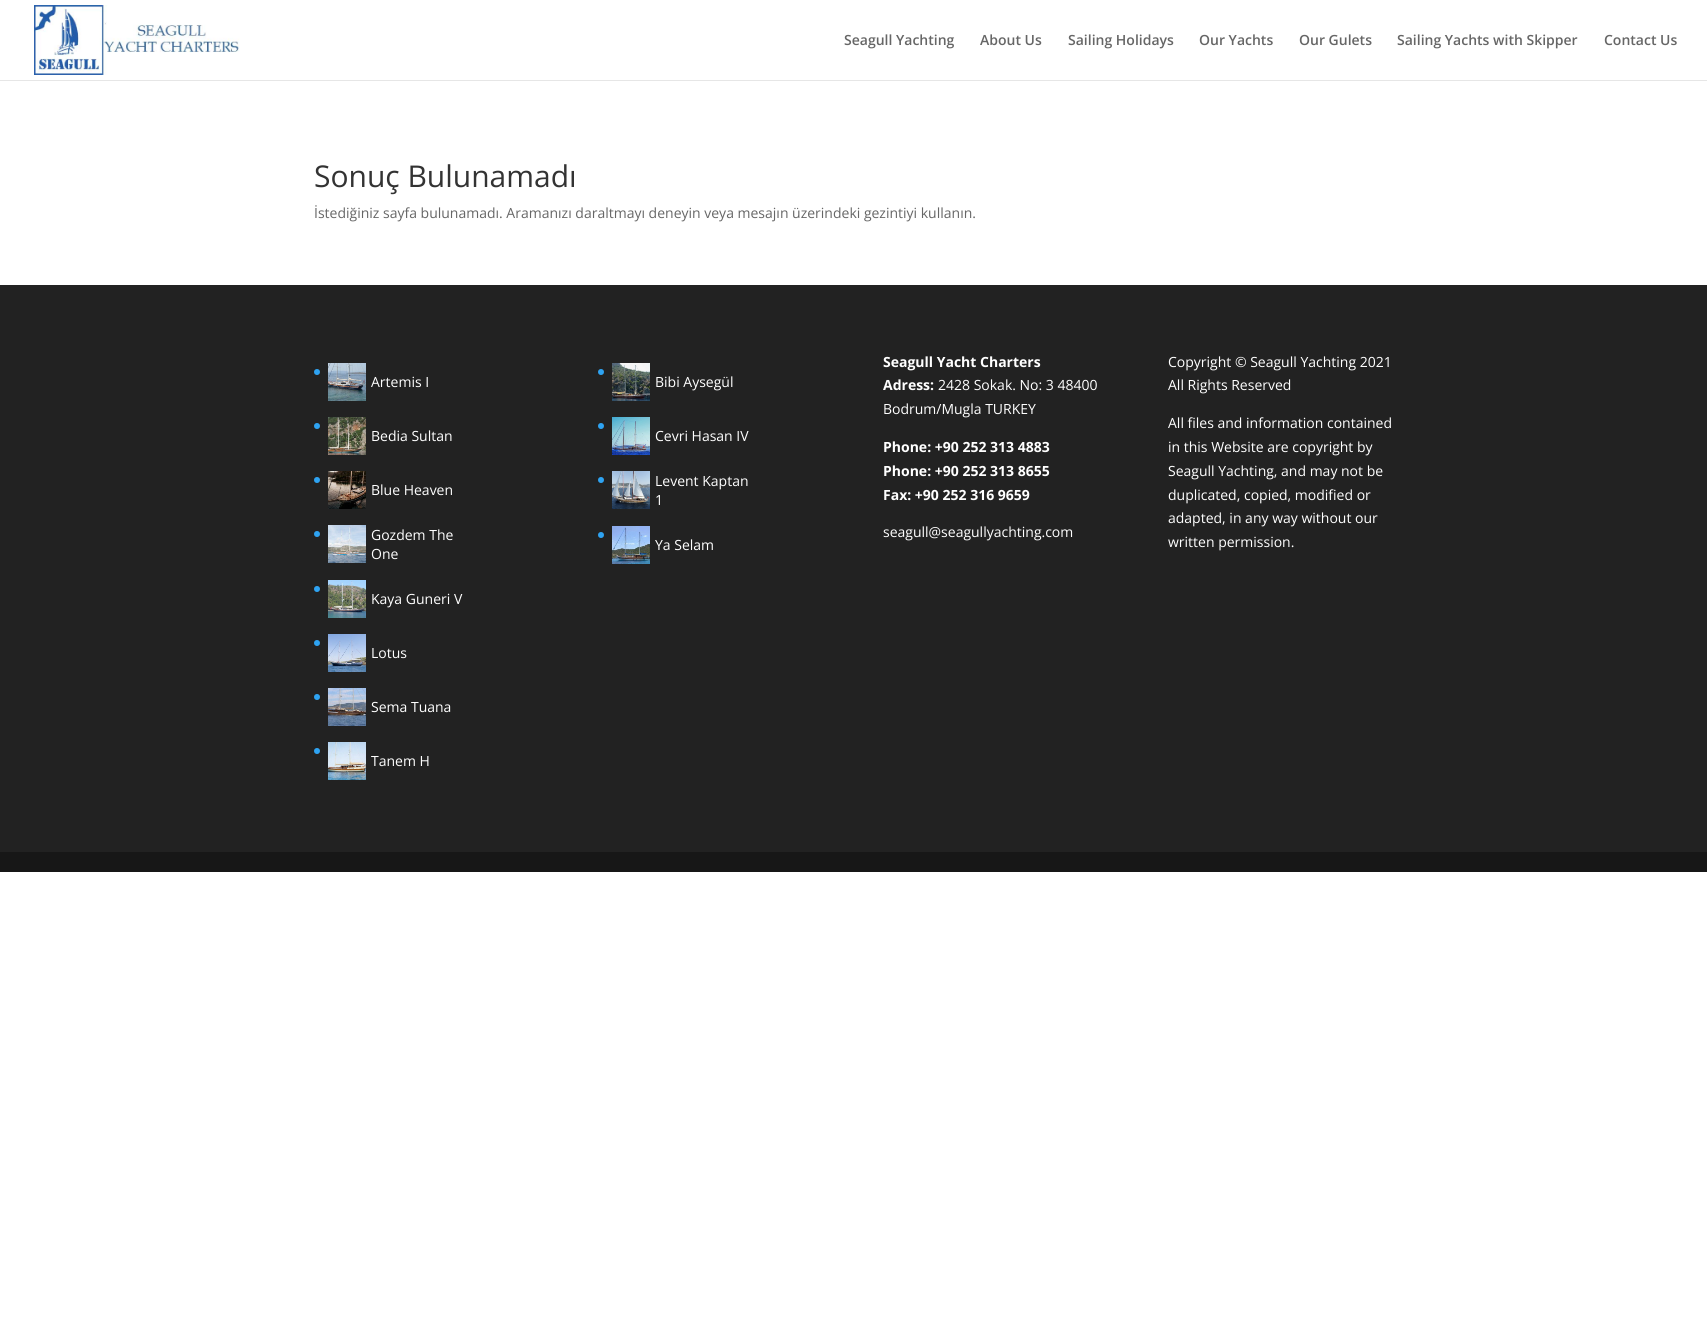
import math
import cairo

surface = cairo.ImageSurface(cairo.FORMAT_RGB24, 1707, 1319)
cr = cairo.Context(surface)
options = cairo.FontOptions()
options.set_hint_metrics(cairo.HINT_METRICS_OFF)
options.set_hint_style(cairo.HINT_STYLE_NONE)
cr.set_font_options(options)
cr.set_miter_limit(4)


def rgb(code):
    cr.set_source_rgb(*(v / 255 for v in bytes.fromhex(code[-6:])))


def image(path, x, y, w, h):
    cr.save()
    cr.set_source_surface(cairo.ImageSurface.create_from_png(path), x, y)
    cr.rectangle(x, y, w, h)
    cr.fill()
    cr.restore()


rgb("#ffffff")
cr.paint()
rgb("#e6e6e6")
cr.rectangle(0, 80, 1707, 1)
cr.fill()
image("img/1.png", 34, 5, 206, 70)
rgb("#222222")
cr.rectangle(0, 285, 1707, 567)
cr.fill()
rgb("#2ea3f2")
cr.arc(317, 372, 3, 0, 2 * math.pi)
cr.fill()
image("img/2.png", 328, 363, 38, 38)
cr.arc(317, 426, 3, 0, 2 * math.pi)
cr.fill()
image("img/3.png", 328, 417, 38, 38)
cr.arc(317, 480, 3, 0, 2 * math.pi)
cr.fill()
image("img/4.png", 328, 471, 38, 38)
cr.arc(317, 534, 3, 0, 2 * math.pi)
cr.fill()
image("img/5.png", 328, 525, 38, 38)
cr.arc(317, 589, 3, 0, 2 * math.pi)
cr.fill()
image("img/6.png", 328, 580, 38, 38)
cr.arc(317, 643, 3, 0, 2 * math.pi)
cr.fill()
image("img/7.png", 328, 634, 38, 38)
cr.arc(317, 697, 3, 0, 2 * math.pi)
cr.fill()
image("img/8.png", 328, 688, 38, 38)
cr.arc(317, 751, 3, 0, 2 * math.pi)
cr.fill()
image("img/9.png", 328, 742, 38, 38)
cr.arc(601, 372, 3, 0, 2 * math.pi)
cr.fill()
image("img/10.png", 612, 363, 38, 38)
cr.arc(601, 426, 3, 0, 2 * math.pi)
cr.fill()
image("img/11.png", 612, 417, 38, 38)
cr.arc(601, 480, 3, 0, 2 * math.pi)
cr.fill()
image("img/12.png", 612, 471, 38, 38)
cr.arc(601, 535, 3, 0, 2 * math.pi)
cr.fill()
image("img/13.png", 612, 526, 38, 38)
rgb("#171717")
cr.rectangle(0, 852, 1707, 20)
cr.fill()
cr.select_font_face("Open Sans SemiBold")
cr.set_font_size(14)
rgb("#666666")
for x, y, s in [
    (844, 45, "Seagull Yachting"),
    (980, 45, "About Us"),
    (1068, 45, "Sailing Holidays"),
    (1199, 45, "Our Yachts"),
    (1299, 45, "Our Gulets"),
    (1397, 45, "Sailing Yachts with Skipper"),
    (1604, 45, "Contact Us"),
]:
    cr.move_to(x, y)
    cr.show_text(s)
cr.select_font_face("Open Sans")
cr.set_font_size(30)
rgb("#333333")
cr.move_to(314, 187)
cr.show_text("Sonuç Bulunamadı")
cr.set_font_size(14)
rgb("#666666")
cr.move_to(314, 218)
cr.show_text("İstediğiniz sayfa bulunamadı. Aramanızı daraltmayı deneyin veya mesajın üzerindeki gezintiyi kullanın.")
rgb("#ffffff")
for x, y, s in [
    (371, 387, "Artemis I"),
    (371, 441, "Bedia Sultan"),
    (371, 495, "Blue Heaven"),
    (371, 540, "Gozdem The"),
    (371, 559, "One"),
    (371, 604, "Kaya Guneri V"),
    (371, 658, "Lotus"),
    (371, 712, "Sema Tuana"),
    (371, 766, "Tanem H"),
    (655, 387, "Bibi Aysegül"),
    (655, 441, "Cevri Hasan IV"),
    (655, 486, "Levent Kaptan"),
    (655, 505, "1"),
    (655, 550, "Ya Selam"),
]:
    cr.move_to(x, y)
    cr.show_text(s)
cr.select_font_face("Open Sans", cairo.FONT_SLANT_NORMAL, cairo.FONT_WEIGHT_BOLD)
cr.move_to(883, 367)
cr.show_text("Seagull Yacht Charters")
cr.move_to(883, 390)
cr.show_text("Adress:")
cr.select_font_face("Open Sans")
cr.move_to(938, 390)
cr.show_text("2428 Sokak. No: 3 48400")
cr.move_to(883, 414)
cr.show_text("Bodrum/Mugla TURKEY")
cr.select_font_face("Open Sans", cairo.FONT_SLANT_NORMAL, cairo.FONT_WEIGHT_BOLD)
for x, y, s in [
    (883, 452, "Phone: +90 252 313 4883"),
    (883, 476, "Phone: +90 252 313 8655"),
    (883, 500, "Fax: +90 252 316 9659"),
]:
    cr.move_to(x, y)
    cr.show_text(s)
cr.select_font_face("Open Sans")
for x, y, s in [
    (883, 537, "seagull@seagullyachting.com"),
    (1168, 367, "Copyright © Seagull Yachting 2021"),
    (1168, 390, "All Rights Reserved"),
    (1168, 428, "All files and information contained"),
    (1168, 452, "in this Website are copyright by"),
    (1168, 476, "Seagull Yachting, and may not be"),
    (1168, 500, "duplicated, copied, modified or"),
    (1168, 523, "adapted, in any way without our"),
    (1168, 547, "written permission."),
]:
    cr.move_to(x, y)
    cr.show_text(s)
surface.write_to_png("page.png")
